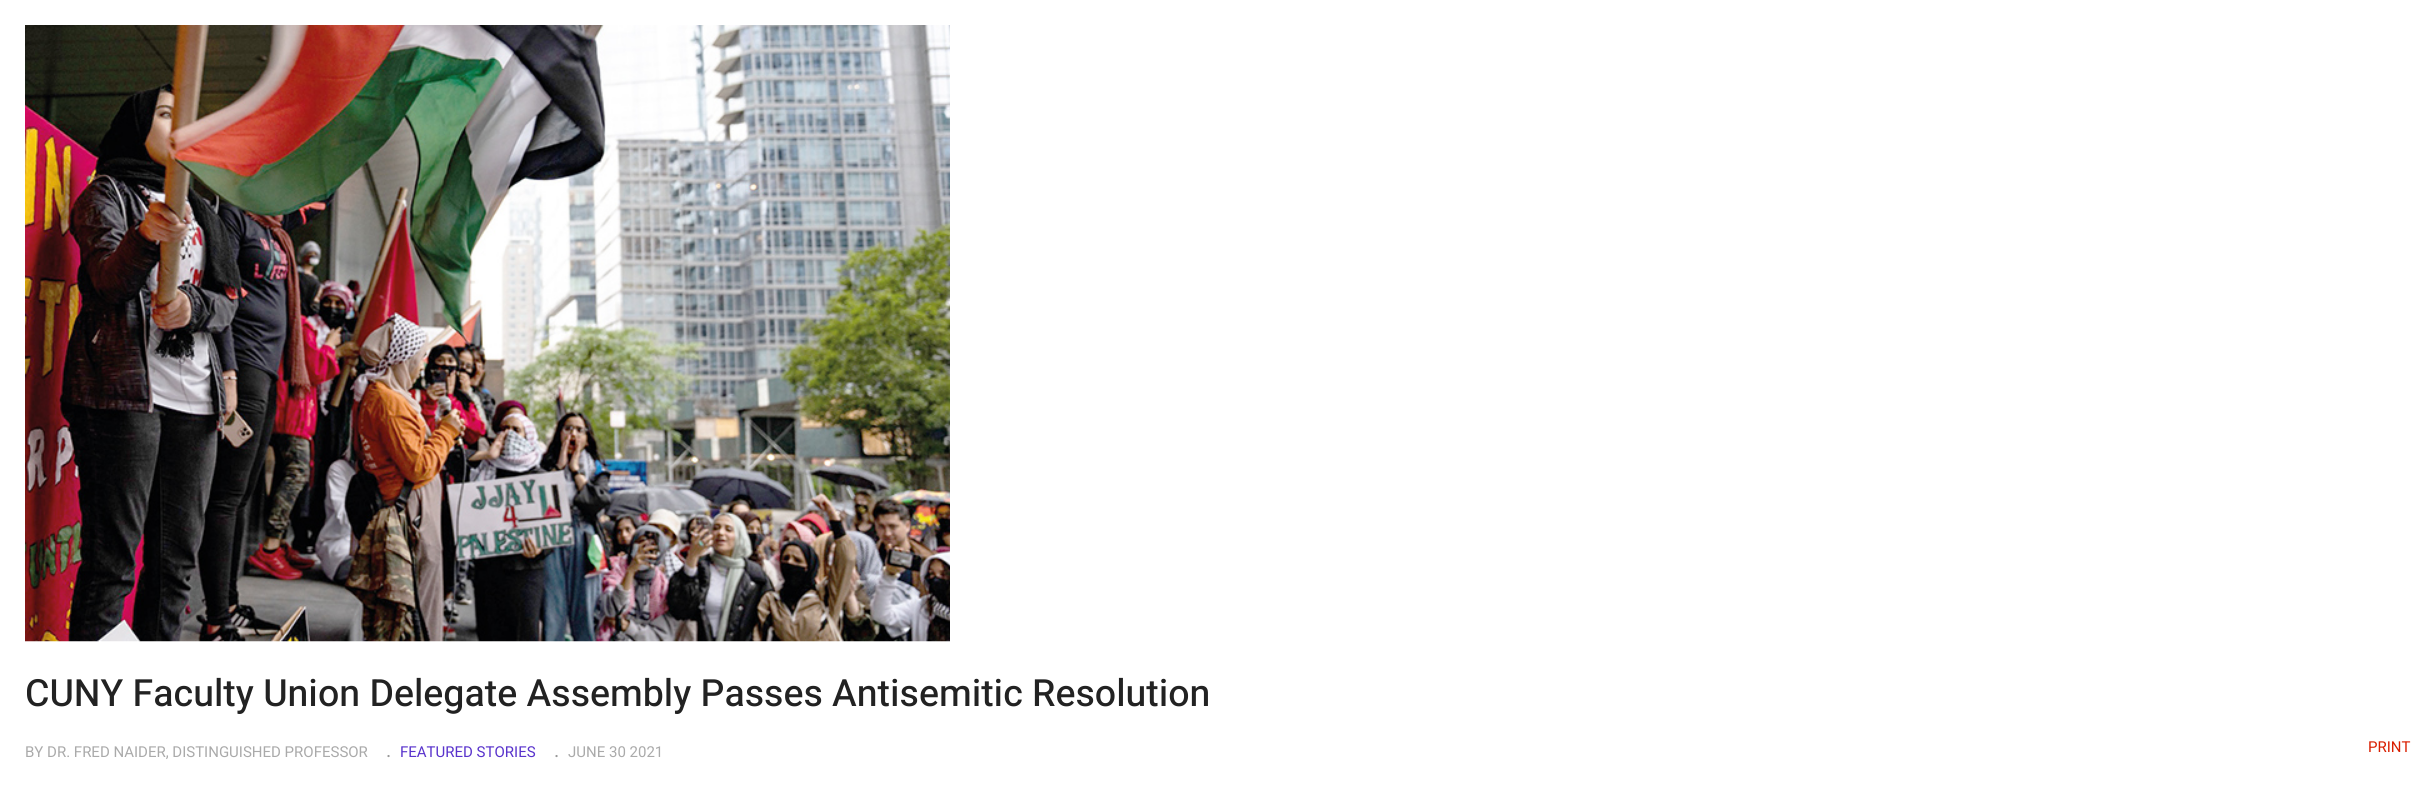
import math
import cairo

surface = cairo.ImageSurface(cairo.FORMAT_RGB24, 2434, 788)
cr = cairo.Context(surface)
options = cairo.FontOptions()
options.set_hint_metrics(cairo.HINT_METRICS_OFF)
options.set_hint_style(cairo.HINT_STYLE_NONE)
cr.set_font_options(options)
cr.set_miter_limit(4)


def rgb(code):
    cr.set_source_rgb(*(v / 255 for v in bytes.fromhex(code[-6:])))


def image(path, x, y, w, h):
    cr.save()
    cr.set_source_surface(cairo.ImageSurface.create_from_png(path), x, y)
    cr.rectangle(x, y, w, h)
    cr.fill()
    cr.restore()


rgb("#ffffff")
cr.paint()
image("img/1.png", 25, 25, 925, 617)
cr.select_font_face("Heebo Medium")
cr.set_font_size(37.5)
rgb("#222222")
cr.move_to(25, 706)
cr.show_text("CUNY Faculty Union Delegate Assembly Passes Antisemitic Resolution")
cr.select_font_face("Heebo")
cr.set_font_size(15)
rgb("#aaaaaa")
cr.move_to(25, 757)
cr.show_text("BY DR. FRED NAIDER, DISTINGUISHED PROFESSOR")
cr.set_font_size(20)
rgb("#999999")
cr.move_to(386, 757)
cr.show_text(".")
cr.set_font_size(15)
rgb("#5933cc")
cr.move_to(400, 757)
cr.show_text("FEATURED STORIES")
cr.set_font_size(20)
rgb("#999999")
cr.move_to(554, 757)
cr.show_text(".")
cr.set_font_size(15)
rgb("#aaaaaa")
cr.move_to(568, 757)
cr.show_text("JUNE 30 2021")
rgb("#d91e00")
cr.move_to(2368, 752)
cr.show_text("PRINT")
surface.write_to_png("page.png")
